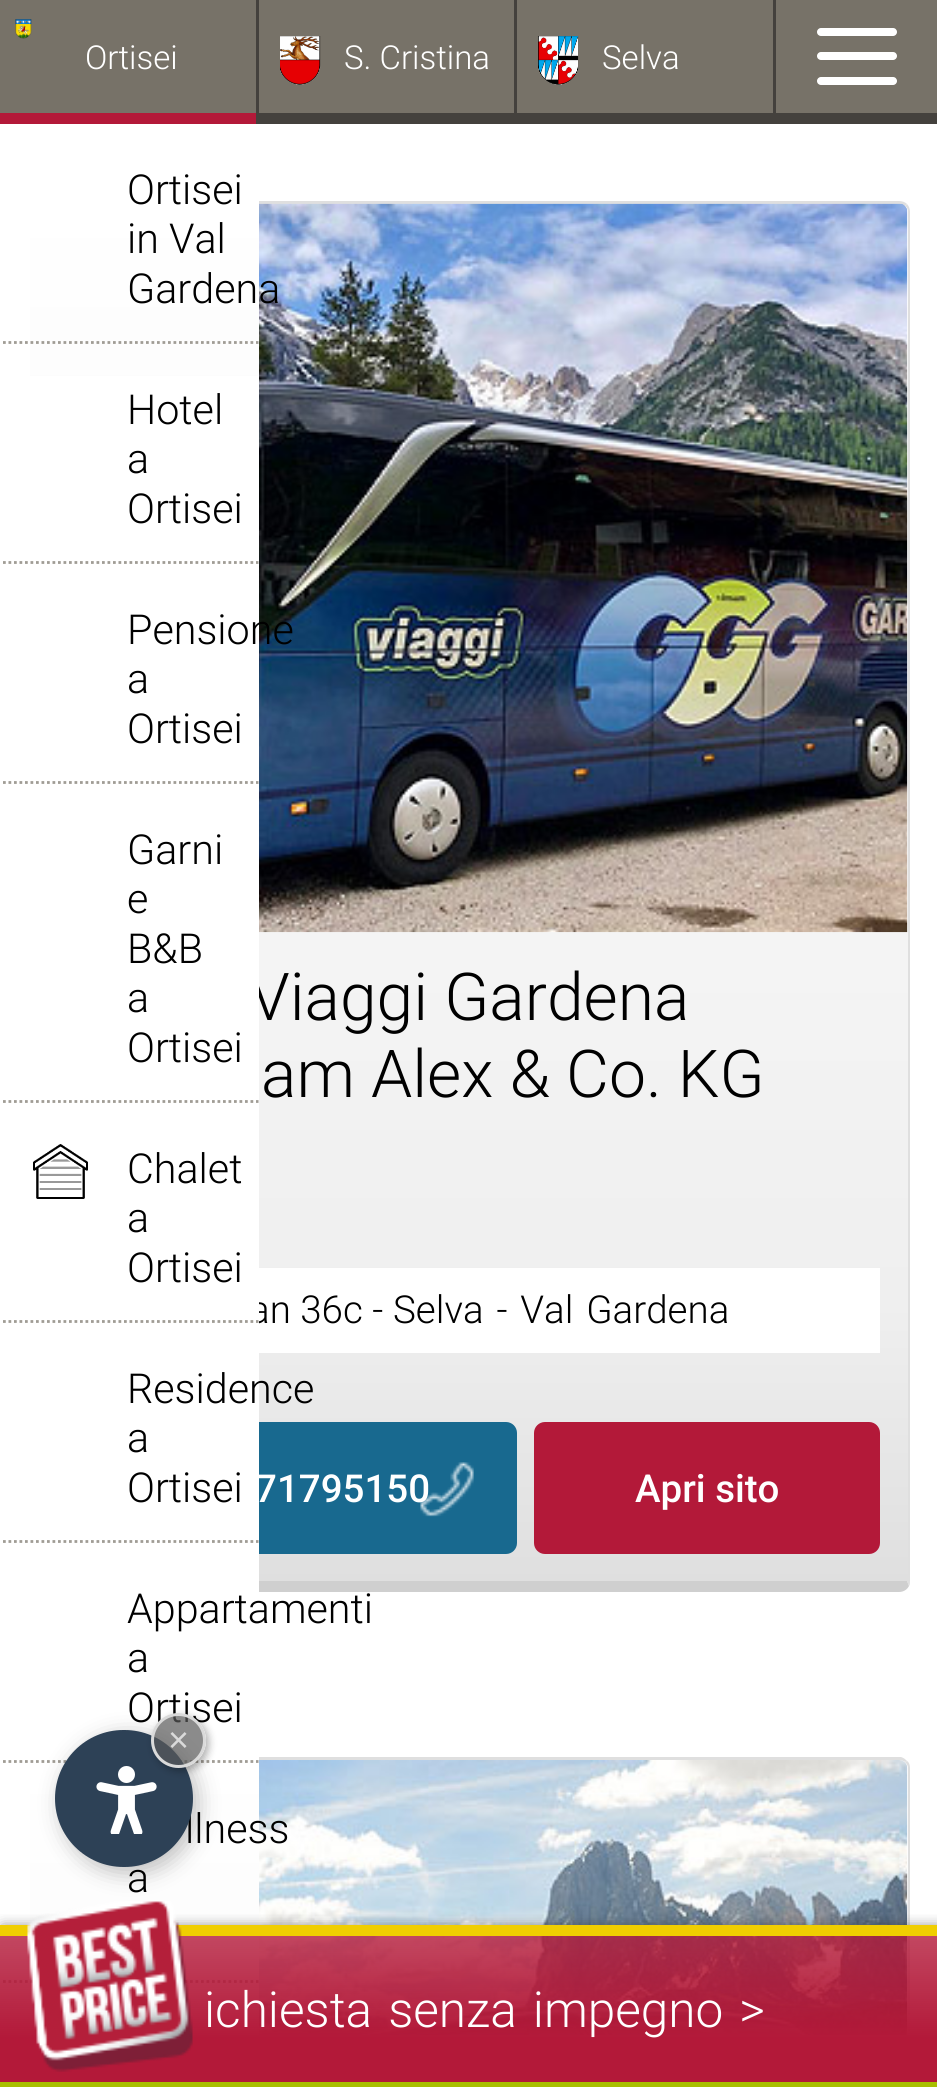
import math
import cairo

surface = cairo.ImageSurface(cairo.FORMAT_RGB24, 937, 2087)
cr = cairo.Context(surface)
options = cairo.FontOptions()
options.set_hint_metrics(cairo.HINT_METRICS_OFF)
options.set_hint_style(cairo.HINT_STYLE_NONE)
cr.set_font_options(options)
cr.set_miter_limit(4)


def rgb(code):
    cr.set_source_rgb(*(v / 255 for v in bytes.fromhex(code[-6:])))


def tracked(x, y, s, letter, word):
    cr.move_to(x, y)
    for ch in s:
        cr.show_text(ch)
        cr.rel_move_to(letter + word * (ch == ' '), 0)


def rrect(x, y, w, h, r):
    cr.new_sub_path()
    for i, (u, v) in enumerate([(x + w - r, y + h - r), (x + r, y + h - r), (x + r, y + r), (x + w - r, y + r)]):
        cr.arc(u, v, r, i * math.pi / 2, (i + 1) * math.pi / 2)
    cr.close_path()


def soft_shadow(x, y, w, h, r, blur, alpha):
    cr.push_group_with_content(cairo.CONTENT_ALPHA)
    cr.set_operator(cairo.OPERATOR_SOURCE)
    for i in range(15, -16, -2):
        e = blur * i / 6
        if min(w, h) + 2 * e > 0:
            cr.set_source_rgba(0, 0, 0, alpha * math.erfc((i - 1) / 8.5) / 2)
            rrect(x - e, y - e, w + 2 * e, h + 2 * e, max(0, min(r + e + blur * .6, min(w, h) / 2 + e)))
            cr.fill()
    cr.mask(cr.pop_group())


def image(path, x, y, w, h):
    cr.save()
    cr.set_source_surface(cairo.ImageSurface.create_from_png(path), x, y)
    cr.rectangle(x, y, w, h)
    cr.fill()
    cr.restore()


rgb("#ffffff")
cr.paint()
rgb("#44413d")
cr.rectangle(256, 0, 520, 124)
cr.fill()
rgb("#777268")
cr.rectangle(0, 0, 256, 113)
cr.fill()
image("img/1.png", 15, 19, 17, 20)
rgb("#b31939")
cr.rectangle(0, 113, 256, 11)
cr.fill()
gradient = cairo.LinearGradient(469, 1581, 469, 204)
gradient.add_color_stop_rgba(0, 0.875, 0.875, 0.875, 1)
gradient.add_color_stop_rgba(0.2, 0.937, 0.937, 0.937, 1)
gradient.add_color_stop_rgba(1, 1, 1, 1, 1)
cr.set_source(gradient)
cr.new_path()
cr.move_to(38, 204)
cr.line_to(899, 204)
cr.curve_to(904, 204, 908, 207, 908, 212)
cr.line_to(908, 1581)
cr.line_to(30, 1581)
cr.line_to(30, 212)
cr.curve_to(30, 207, 34, 204, 38, 204)
cr.close_path()
cr.fill()
rgb("#dfdfdf")
cr.new_path()
cr.move_to(38, 201)
cr.curve_to(35, 201, 33, 202, 31, 204)
cr.line_to(33, 206)
cr.curve_to(34, 205, 36, 204, 38, 204)
cr.line_to(899, 204)
cr.curve_to(901, 204, 903, 205, 905, 206)
cr.line_to(907, 204)
cr.curve_to(905, 202, 902, 201, 899, 201)
cr.close_path()
cr.fill()
rgb("#ffffff")
cr.rectangle(31, 201, 228, 5)
cr.fill()
cr.new_path()
cr.move_to(3, 342.5)
cr.line_to(258.5, 342.5)
rgb("#a09c95")
cr.set_line_width(2.8)
cr.set_dash([2.75, 2.75])
cr.stroke()
rgb("#dfdfdf")
cr.new_path()
cr.move_to(909, 1586)
cr.curve_to(910, 1585, 910, 1583, 910, 1581)
cr.line_to(910, 212)
cr.curve_to(910, 209, 909, 206, 907, 204)
cr.line_to(905, 206)
cr.curve_to(907, 207, 908, 209, 908, 212)
cr.line_to(908, 1581)
cr.line_to(907, 1581)
cr.close_path()
cr.fill()
rgb("#cfcfcf")
cr.new_path()
cr.move_to(909, 1586)
cr.curve_to(907, 1590, 903, 1592, 899, 1592)
cr.line_to(38, 1592)
cr.curve_to(34, 1592, 31, 1590, 29, 1586)
cr.line_to(30, 1581)
cr.line_to(907, 1581)
cr.close_path()
cr.fill()
rgb("#18698f")
rrect(58, 1422, 459, 132, 11)
cr.fill()
gradient = cairo.LinearGradient(469, 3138, 469, 1760)
gradient.add_color_stop_rgba(0, 0.875, 0.875, 0.875, 1)
gradient.add_color_stop_rgba(0.2, 0.937, 0.937, 0.937, 1)
gradient.add_color_stop_rgba(1, 1, 1, 1, 1)
cr.set_source(gradient)
cr.new_path()
cr.move_to(38, 1760)
cr.line_to(899, 1760)
cr.curve_to(904, 1760, 908, 1764, 908, 1768)
cr.line_to(908, 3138)
cr.line_to(30, 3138)
cr.line_to(30, 1768)
cr.curve_to(30, 1764, 34, 1760, 38, 1760)
cr.close_path()
cr.fill()
rgb("#dfdfdf")
cr.new_path()
cr.move_to(38, 1760)
cr.curve_to(36, 1760, 34, 1761, 33, 1762)
cr.line_to(31, 1760)
cr.curve_to(32, 1759, 34, 1758, 36, 1757)
cr.line_to(901, 1757)
cr.curve_to(904, 1758, 905, 1759, 907, 1761)
cr.line_to(905, 1762)
cr.curve_to(904, 1761, 901, 1760, 899, 1760)
cr.close_path()
cr.fill()
rgb("#ffffff")
cr.rectangle(29, 1543, 230, 219)
cr.fill()
cr.new_path()
cr.move_to(3, 1761.5)
cr.line_to(258.5, 1761.5)
rgb("#a09c95")
cr.stroke()
rgb("#ffffff")
cr.rectangle(30, 1932, 229, 103)
cr.fill()
cr.new_path()
cr.move_to(3, 1981.5)
cr.line_to(258.5, 1981.5)
rgb("#a09c95")
cr.stroke()
rgb("#777268")
cr.rectangle(259, 0, 255, 113)
cr.fill()
image("img/3.png", 280, 36, 41, 49)
cr.rectangle(517, 0, 256, 113)
cr.fill()
image("img/4.png", 538, 36, 41, 49)
cr.rectangle(776, 0, 161, 113)
cr.fill()
rgb("#44413d")
cr.rectangle(776, 113, 161, 11)
cr.fill()
rgb("#ffffff")
rrect(817, 28, 80, 8, 4)
cr.fill()
rrect(817, 52, 80, 8, 4)
cr.fill()
rrect(817, 77, 80, 8, 4)
cr.fill()
image("img/5.png", 259, 203, 649, 730)
cr.rectangle(259, 1268, 621, 85)
cr.fill()
image("img/6.png", 420, 1462, 54, 55)
rgb("#b31939")
rrect(534, 1422, 346, 132, 11)
cr.fill()
rgb("#dfdfdf")
cr.new_path()
cr.move_to(907, 1761)
cr.curve_to(909, 1762, 910, 1765, 910, 1768)
cr.line_to(910, 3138)
cr.curve_to(910, 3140, 910, 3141, 909, 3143)
cr.line_to(908, 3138)
cr.line_to(908, 1768)
cr.curve_to(908, 1766, 907, 1764, 905, 1762)
cr.close_path()
cr.fill()
image("img/7.png", 259, 1760, 649, 275)
cr.save()
cr.rectangle(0, 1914, 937, 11)
cr.clip()
rgb("#323232")
soft_shadow(3, 1928, 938, 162, 0, 7, 0.75)
cr.restore()
gradient = cairo.LinearGradient(469, 2082, 469, 1936)
gradient.add_color_stop_rgba(0.3, 0.702, 0.098, 0.224, 1)
gradient.add_color_stop_rgba(1, 0.702, 0.098, 0.224, 0.8)
cr.set_source(gradient)
cr.rectangle(0, 1936, 937, 146)
cr.fill()
rgb("#f0ce01")
cr.rectangle(0, 1925, 937, 11)
cr.fill()
image("img/9.png", 27, 1901, 166, 171)
rgb("#000000")
soft_shadow(61, 1735, 137, 138, 68.5, 11, 0.25)
rgb("#a9bf00")
cr.rectangle(0, 2082, 937, 5)
cr.fill()
cr.select_font_face("Roboto Light")
cr.set_font_size(33)
rgb("#ffffff")
cr.move_to(85, 69)
cr.show_text("Ortisei")
cr.set_font_size(41.25)
rgb("#000000")
for x, y, s in [
    (127, 204, "Ortisei"),
    (127, 253, "in Val"),
    (127, 303, "Gardena"),
    (127, 1623, "Appartamenti"),
    (127, 1672, "a"),
    (127, 1722, "Ortisei"),
    (185, 1843, "llness"),
    (127, 1892, "a"),
]:
    cr.move_to(x, y)
    cr.show_text(s)
cr.set_font_size(33)
rgb("#ffffff")
cr.move_to(344, 69)
cr.show_text("S. Cristina")
cr.move_to(602, 69)
cr.show_text("Selva")
cr.set_font_size(66)
rgb("#000000")
cr.move_to(249, 1020)
cr.show_text("Viaggi Gardena")
cr.move_to(261, 1097)
cr.show_text("am Alex & Co. KG")
cr.set_font_size(38.5)
cr.move_to(249, 1323)
cr.show_text("an 36c -")
rgb("#ffffff")
cr.rectangle(30, 376, 229, 1167)
cr.fill()
cr.set_font_size(41.25)
rgb("#000000")
for x, y, s in [
    (127, 1502, "Ortisei"),
    (127, 1452, "a"),
    (127, 1403, "Residence"),
]:
    cr.move_to(x, y)
    cr.show_text(s)
cr.new_path()
cr.move_to(3, 1541.5)
cr.line_to(258.5, 1541.5)
rgb("#a09c95")
cr.stroke()
rgb("#000000")
for x, y, s in [
    (127, 1282, "Ortisei"),
    (127, 1232, "a"),
    (127, 1183, "Chalet"),
]:
    cr.move_to(x, y)
    cr.show_text(s)
cr.new_path()
cr.move_to(3, 1321.5)
cr.line_to(258.5, 1321.5)
rgb("#a09c95")
cr.stroke()
image("img/2.png", 33, 1144, 55, 55)
rgb("#000000")
for x, y, s in [
    (127, 1062, "Ortisei"),
    (127, 1012, "a"),
    (127, 963, "B&B"),
    (127, 913, "e"),
    (127, 864, "Garni"),
]:
    cr.move_to(x, y)
    cr.show_text(s)
cr.new_path()
cr.move_to(3, 1101.5)
cr.line_to(258.5, 1101.5)
rgb("#a09c95")
cr.stroke()
rgb("#000000")
for x, y, s in [
    (127, 743, "Ortisei"),
    (127, 693, "a"),
    (127, 644, "Pensione"),
]:
    cr.move_to(x, y)
    cr.show_text(s)
cr.new_path()
cr.move_to(3, 782.5)
cr.line_to(258.5, 782.5)
rgb("#a09c95")
cr.stroke()
rgb("#000000")
for x, y, s in [
    (127, 523, "Ortisei"),
    (127, 473, "a"),
    (127, 424, "Hotel"),
]:
    cr.move_to(x, y)
    cr.show_text(s)
cr.new_path()
cr.move_to(3, 562.5)
cr.line_to(258.5, 562.5)
rgb("#a09c95")
cr.stroke()
cr.set_font_size(38.5)
rgb("#000000")
tracked(393, 1323, "Selva - Val Gardena", 0, 3.5)
cr.select_font_face("Roboto Medium")
rgb("#ffffff")
cr.move_to(255, 1502)
cr.show_text("71795150")
cr.move_to(635, 1502)
cr.show_text("Apri sito")
rgb("#2d4156")
rrect(55, 1730, 138, 137, 68.5)
cr.fill()
image("img/8.png", 96, 1766, 61, 68)
cr.save()
cr.set_fill_rule(cairo.FILL_RULE_EVEN_ODD)
cr.new_path()
cr.move_to(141, 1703)
cr.line_to(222, 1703)
cr.line_to(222, 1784)
cr.line_to(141, 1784)
cr.close_path()
cr.move_to(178.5, 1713)
cr.curve_to(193.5, 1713, 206, 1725.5, 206, 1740.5)
cr.curve_to(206, 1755.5, 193.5, 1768, 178.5, 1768)
cr.curve_to(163.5, 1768, 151, 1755.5, 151, 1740.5)
cr.curve_to(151, 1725.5, 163.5, 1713, 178.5, 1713)
cr.close_path()
cr.clip()
rgb("#000000")
soft_shadow(154, 1716, 55, 55, 27.5, 4, 0.3)
cr.restore()
cr.set_source_rgba(0.353, 0.353, 0.353, 0.7)
cr.arc(178.5, 1740.5, 26, 0, 2 * math.pi)
cr.fill_preserve()
rgb("#dadada")
cr.set_line_width(3)
cr.set_dash([])
cr.stroke()
cr.select_font_face("Liberation Sans")
cr.set_font_size(36)
cr.move_to(168, 1752)
cr.show_text("×")
cr.select_font_face("Roboto Light")
cr.set_font_size(49.5)
rgb("#ffffff")
tracked(204, 2027, "ichiesta senza impegno >", 0, 4)
surface.write_to_png("page.png")
